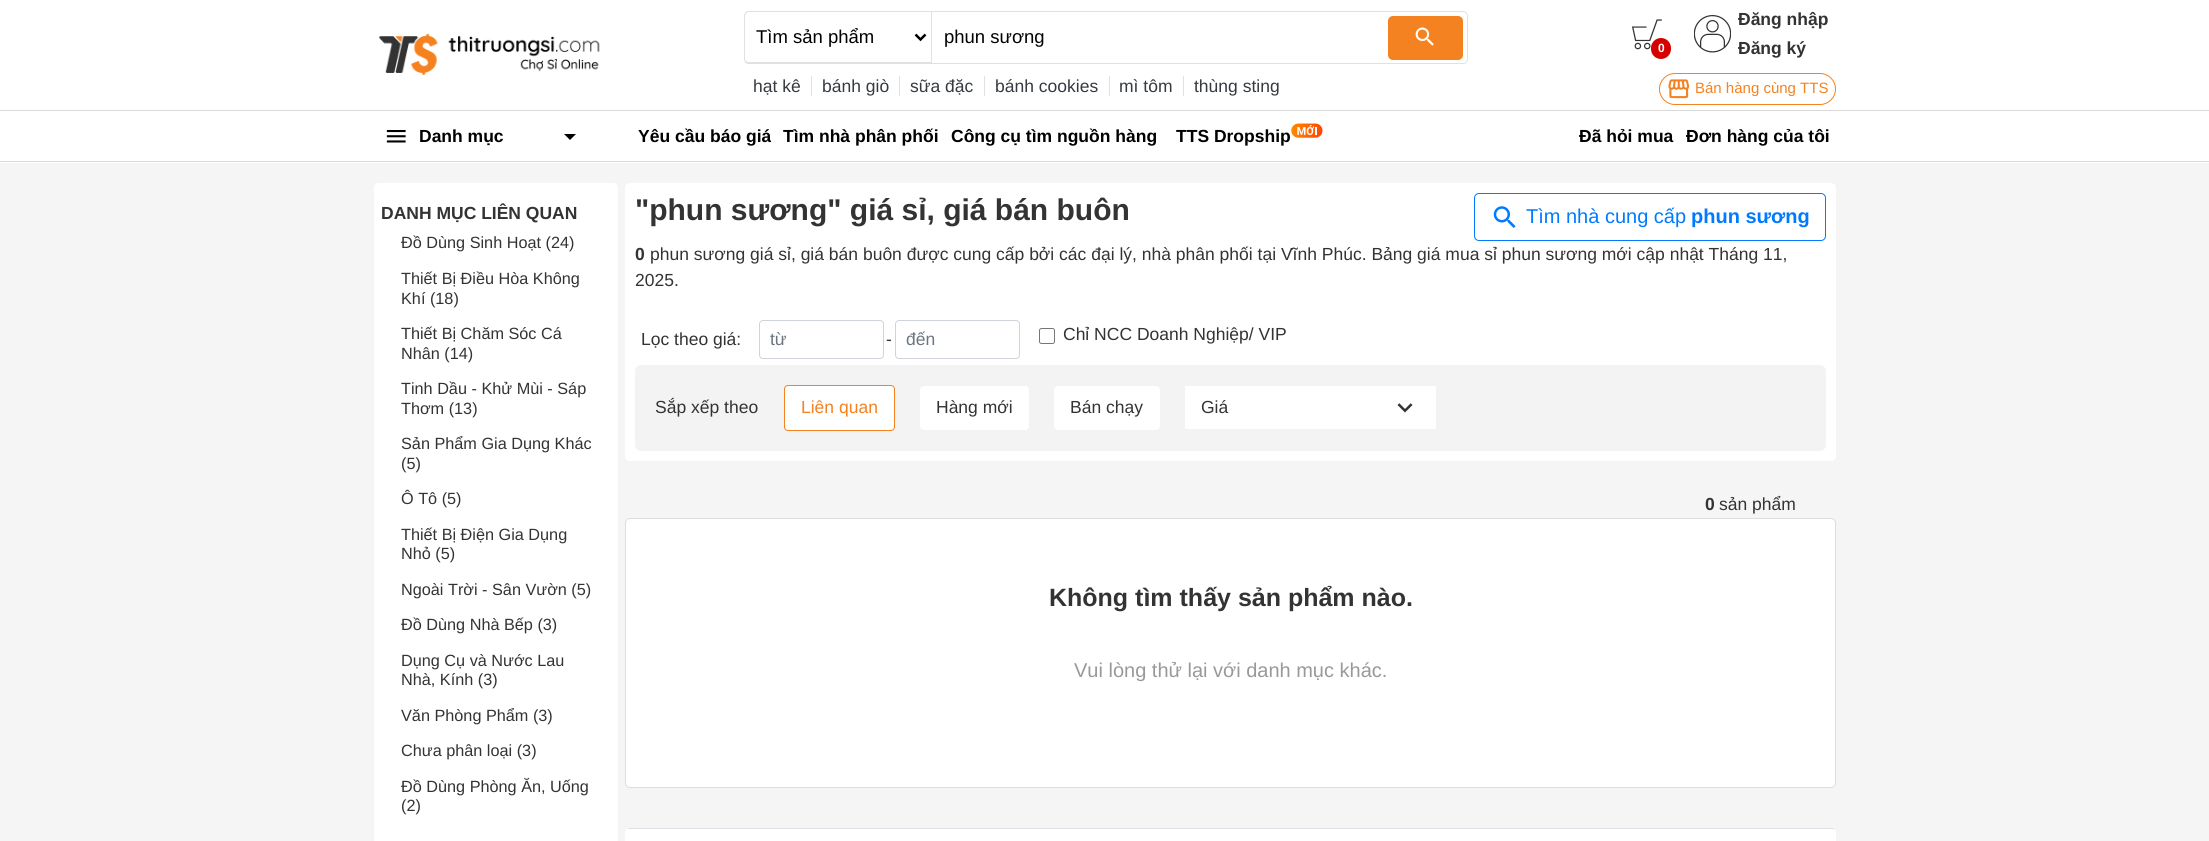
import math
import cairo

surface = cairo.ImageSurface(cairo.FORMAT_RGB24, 2209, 841)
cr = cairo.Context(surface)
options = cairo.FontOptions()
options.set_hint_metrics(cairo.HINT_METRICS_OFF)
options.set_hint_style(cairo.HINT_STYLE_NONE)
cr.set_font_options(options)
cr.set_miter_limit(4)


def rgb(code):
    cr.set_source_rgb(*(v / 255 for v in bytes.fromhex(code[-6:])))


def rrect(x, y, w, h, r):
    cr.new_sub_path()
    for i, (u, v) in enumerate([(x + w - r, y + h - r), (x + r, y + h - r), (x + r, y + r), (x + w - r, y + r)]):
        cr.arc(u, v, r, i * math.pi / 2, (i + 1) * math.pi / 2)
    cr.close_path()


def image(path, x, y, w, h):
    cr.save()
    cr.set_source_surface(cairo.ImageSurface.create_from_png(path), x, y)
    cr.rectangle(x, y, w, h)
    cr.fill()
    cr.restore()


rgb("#ffffff")
cr.paint()
image("img/1.png", 379, 33, 221, 42)
rgb("#e1e1e1")
cr.set_fill_rule(cairo.FILL_RULE_EVEN_ODD)
cr.new_path()
cr.move_to(749, 11)
cr.line_to(931, 11)
cr.line_to(931, 64)
cr.line_to(749, 64)
cr.curve_to(746, 64, 744, 62, 744, 59)
cr.line_to(744, 16)
cr.curve_to(744, 13, 746, 11, 749, 11)
cr.close_path()
cr.move_to(749, 12)
cr.line_to(931, 12)
cr.line_to(931, 62)
cr.line_to(749, 62)
cr.curve_to(747, 62, 745, 61, 745, 59)
cr.line_to(745, 16)
cr.curve_to(745, 14, 747, 12, 749, 12)
cr.close_path()
cr.fill()
cr.new_path()
cr.move_to(915.5, 34.5)
cr.line_to(920.5, 39.5)
cr.line_to(925.5, 34.5)
rgb("#000000")
cr.set_line_width(2.5)
cr.stroke()
cr.new_path()
cr.move_to(931.5, 11.5)
cr.line_to(1463, 11.5)
cr.curve_to(1465.5, 11.5, 1467.5, 13.5, 1467.5, 16)
cr.line_to(1467.5, 59)
cr.curve_to(1467.5, 61.5, 1465.5, 63.5, 1463, 63.5)
cr.line_to(931.5, 63.5)
cr.close_path()
rgb("#e1e1e1")
cr.set_line_width(1)
cr.stroke()
rgb("#f58220")
rrect(1388, 16, 75, 44, 5)
cr.fill()
image("img/2.png", 1415, 27, 19, 19)
for x, y, w, h, color in [
    (811, 76, 1, 20, "#dee2e6"),
    (899, 76, 1, 20, "#dee2e6"),
    (984, 76, 1, 20, "#dee2e6"),
    (1109, 76, 1, 20, "#dee2e6"),
    (1183, 76, 1, 20, "#dee2e6"),
]:
    rgb(color)
    cr.rectangle(x, y, w, h)
    cr.fill()
image("img/3.png", 1632, 19, 30, 31)
rgb("#d50000")
rrect(1651, 38, 20, 21, 10)
cr.fill()
image("img/4.png", 1694, 15, 37, 38)
rrect(1659.5, 73.5, 176, 31, 15.5)
rgb("#f58220")
cr.stroke()
image("img/5.png", 1668, 79, 22, 20)
rgb("#d9d9d9")
cr.rectangle(0, 110, 2209, 1)
cr.fill()
cr.rectangle(0, 161, 2209, 1)
cr.fill()
image("img/6.png", 386, 130, 20, 13)
rgb("#000000")
cr.set_fill_rule(cairo.FILL_RULE_WINDING)
cr.new_path()
cr.move_to(564, 134)
cr.line_to(570, 140)
cr.line_to(576, 134)
cr.close_path()
cr.fill()
image("img/7.png", 1291, 123, 32, 15)
rgb("#f5f5f5")
cr.rectangle(0, 163, 2209, 678)
cr.fill()
rgb("#ffffff")
rrect(374, 183, 244, 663, 5)
cr.fill()
rrect(625, 183, 1211, 278, 5)
cr.fill()
rrect(1474.5, 193.5, 351, 47, 4.5)
rgb("#007bff")
cr.stroke()
image("img/8.png", 1493, 206, 23, 22)
rrect(759.5, 320.5, 124, 38, 3.5)
rgb("#ced4da")
cr.stroke()
rrect(895.5, 320.5, 124, 38, 3.5)
cr.stroke()
rrect(1039.5, 328.5, 15, 15, 2)
rgb("#767676")
cr.stroke()
rgb("#f3f3f3")
rrect(635, 365, 1191, 86, 6)
cr.fill()
rgb("#ffffff")
rrect(784.5, 385.5, 110, 45, 3.5)
cr.fill_preserve()
rgb("#f58220")
cr.stroke()
rgb("#ffffff")
rrect(920, 386, 109, 44, 4)
cr.fill()
rrect(1054, 386, 106, 44, 4)
cr.fill()
cr.rectangle(1185, 386, 251, 43)
cr.fill()
image("img/9.png", 1397, 403, 16, 10)
rrect(625.5, 518.5, 1210, 269, 4.5)
cr.fill_preserve()
rgb("#dddddd")
cr.stroke()
rgb("#ffffff")
rrect(625, 828, 1211, 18, 5)
cr.fill()
rgb("#dee2e6")
cr.rectangle(628, 828, 1206, 1)
cr.fill()
cr.select_font_face("Liberation Sans")
cr.set_font_size(18.5)
rgb("#000000")
cr.move_to(756, 43)
cr.show_text("Tìm sản phẩm")
cr.move_to(944, 43)
cr.show_text("phun sương")
cr.set_font_size(17.5)
rgb("#343a40")
for x, y, s in [
    (753, 92, "hạt kê"),
    (822, 92, "bánh giò"),
    (910, 92, "sữa đặc"),
    (995, 92, "bánh cookies"),
    (1119, 92, "mì tôm"),
    (1194, 92, "thùng sting"),
]:
    cr.move_to(x, y)
    cr.show_text(s)
cr.select_font_face("Liberation Sans", cairo.FONT_SLANT_NORMAL, cairo.FONT_WEIGHT_BOLD)
cr.set_font_size(12)
rgb("#ffffff")
cr.move_to(1658, 52)
cr.show_text("0")
cr.set_font_size(17.5)
rgb("#333333")
cr.move_to(1738, 25)
cr.show_text("Đăng nhập")
cr.move_to(1738, 54)
cr.show_text("Đăng ký")
cr.select_font_face("Liberation Sans")
cr.set_font_size(15)
rgb("#f58220")
cr.move_to(1695, 93)
cr.show_text("Bán hàng cùng TTS")
cr.select_font_face("Liberation Sans", cairo.FONT_SLANT_NORMAL, cairo.FONT_WEIGHT_BOLD)
cr.set_font_size(17.5)
rgb("#000000")
for x, y, s in [
    (419, 142, "Danh mục"),
    (638, 142, "Yêu cầu báo giá"),
    (783, 142, "Tìm nhà phân phối"),
    (951, 142, "Công cụ tìm nguồn hàng"),
    (1176, 142, "TTS Dropship"),
    (1579, 142, "Đã hỏi mua"),
    (1686, 142, "Đơn hàng của tôi"),
]:
    cr.move_to(x, y)
    cr.show_text(s)
rgb("#333333")
cr.move_to(381, 219)
cr.show_text("DANH MỤC LIÊN QUAN")
cr.select_font_face("Liberation Sans")
cr.set_font_size(16.25)
for x, y, s in [
    (401, 248, "Đồ Dùng Sinh Hoạt (24)"),
    (401, 284, "Thiết Bị Điều Hòa Không"),
    (401, 304, "Khí (18)"),
    (401, 339, "Thiết Bị Chăm Sóc Cá"),
    (401, 359, "Nhân (14)"),
    (401, 394, "Tinh Dầu - Khử Mùi - Sáp"),
    (401, 414, "Thơm (13)"),
    (401, 449, "Sản Phẩm Gia Dụng Khác"),
    (401, 469, "(5)"),
    (401, 504, "Ô Tô (5)"),
    (401, 540, "Thiết Bị Điện Gia Dụng"),
    (401, 559, "Nhỏ (5)"),
    (401, 595, "Ngoài Trời - Sân Vườn (5)"),
    (401, 630, "Đồ Dùng Nhà Bếp (3)"),
    (401, 666, "Dụng Cụ và Nước Lau"),
    (401, 685, "Nhà, Kính (3)"),
    (401, 721, "Văn Phòng Phẩm (3)"),
    (401, 756, "Chưa phân loại (3)"),
    (401, 792, "Đồ Dùng Phòng Ăn, Uống"),
    (401, 811, "(2)"),
]:
    cr.move_to(x, y)
    cr.show_text(s)
cr.select_font_face("Liberation Sans", cairo.FONT_SLANT_NORMAL, cairo.FONT_WEIGHT_BOLD)
cr.set_font_size(30)
cr.move_to(635, 220)
cr.show_text("\"phun sương\" giá sỉ, giá bán buôn")
cr.select_font_face("Liberation Sans")
cr.set_font_size(20)
rgb("#007bff")
cr.move_to(1526, 223)
cr.show_text("Tìm nhà cung cấp")
cr.select_font_face("Liberation Sans", cairo.FONT_SLANT_NORMAL, cairo.FONT_WEIGHT_BOLD)
cr.move_to(1691, 223)
cr.show_text("phun sương")
cr.set_font_size(17.5)
rgb("#333333")
cr.move_to(635, 260)
cr.show_text("0")
cr.select_font_face("Liberation Sans")
for x, y, s in [
    (650, 260, "phun sương giá sỉ, giá bán buôn được cung cấp bởi các đại lý, nhà phân phối tại Vĩnh Phúc. Bảng giá mua sỉ phun sương mới cập nhật Tháng 11,"),
    (635, 286, "2025."),
    (641, 345, "Lọc theo giá:"),
]:
    cr.move_to(x, y)
    cr.show_text(s)
rgb("#6c757d")
cr.move_to(770, 345)
cr.show_text("từ")
rgb("#333333")
cr.move_to(886, 345)
cr.show_text("-")
rgb("#6c757d")
cr.move_to(906, 345)
cr.show_text("đến")
rgb("#333333")
cr.move_to(1063, 340)
cr.show_text("Chỉ NCC Doanh Nghiệp/ VIP")
cr.move_to(655, 413)
cr.show_text("Sắp xếp theo")
rgb("#f58220")
cr.move_to(801, 413)
cr.show_text("Liên quan")
rgb("#333333")
for x, y, s in [
    (936, 413, "Hàng mới"),
    (1070, 413, "Bán chạy"),
    (1201, 413, "Giá"),
]:
    cr.move_to(x, y)
    cr.show_text(s)
cr.select_font_face("Liberation Sans", cairo.FONT_SLANT_NORMAL, cairo.FONT_WEIGHT_BOLD)
cr.move_to(1705, 510)
cr.show_text("0")
cr.select_font_face("Liberation Sans")
cr.move_to(1719, 510)
cr.show_text("sản phẩm")
cr.select_font_face("Liberation Sans", cairo.FONT_SLANT_NORMAL, cairo.FONT_WEIGHT_BOLD)
cr.set_font_size(25)
cr.move_to(1049, 606)
cr.show_text("Không tìm thấy sản phẩm nào.")
cr.select_font_face("Liberation Sans")
cr.set_font_size(20)
rgb("#999999")
cr.move_to(1074, 677)
cr.show_text("Vui lòng thử lại với danh mục khác.")
surface.write_to_png("page.png")
